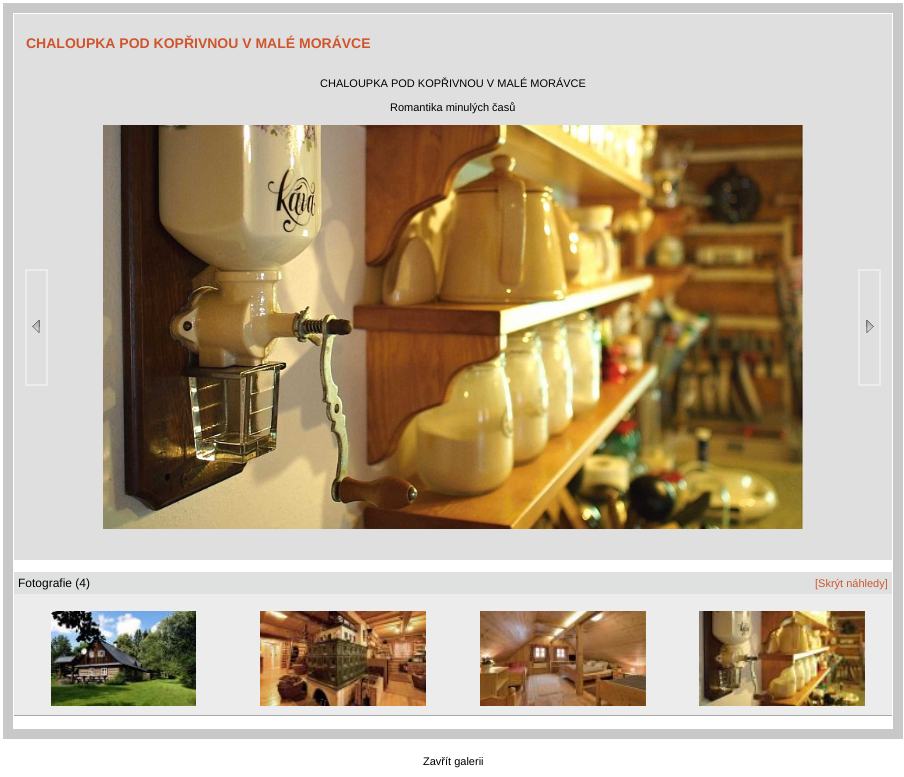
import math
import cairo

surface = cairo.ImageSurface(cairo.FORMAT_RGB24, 904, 777)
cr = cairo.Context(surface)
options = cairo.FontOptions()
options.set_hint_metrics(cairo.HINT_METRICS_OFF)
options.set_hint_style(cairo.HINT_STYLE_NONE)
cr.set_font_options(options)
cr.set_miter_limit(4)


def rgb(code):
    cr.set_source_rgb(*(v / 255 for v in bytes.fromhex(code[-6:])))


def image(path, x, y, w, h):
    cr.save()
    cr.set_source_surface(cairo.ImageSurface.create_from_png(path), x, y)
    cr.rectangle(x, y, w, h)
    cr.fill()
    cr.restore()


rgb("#ffffff")
cr.paint()
for x, y, w, h, color in [
    (13, 3, 880, 10, "#c8c8c8"),
    (893, 3, 10, 726, "#c8c8c8"),
    (13, 729, 890, 10, "#c8c8c8"),
    (3, 3, 10, 736, "#c8c8c8"),
    (14, 14, 878, 546, "#dfdfdf"),
]:
    rgb(color)
    cr.rectangle(x, y, w, h)
    cr.fill()
image("img/1.png", 25, 269, 23, 117)
image("img/2.png", 103, 125, 700, 404)
image("img/3.png", 858, 269, 23, 117)
rgb("#dfe0e0")
cr.rectangle(14, 572, 878, 22)
cr.fill()
rgb("#ececec")
cr.rectangle(14, 594, 878, 121)
cr.fill()
image("img/4.png", 51, 611, 145, 95)
image("img/5.png", 260, 611, 166, 95)
image("img/6.png", 480, 611, 166, 95)
image("img/7.png", 699, 611, 166, 95)
rgb("#a8aaa9")
cr.rectangle(14, 715, 878, 1)
cr.fill()
cr.select_font_face("Liberation Sans", cairo.FONT_SLANT_NORMAL, cairo.FONT_WEIGHT_BOLD)
cr.set_font_size(14)
rgb("#ce552d")
cr.move_to(26, 48)
cr.show_text("CHALOUPKA POD KOPŘIVNOU V MALÉ MORÁVCE")
cr.select_font_face("Liberation Sans")
cr.set_font_size(11)
rgb("#000000")
cr.move_to(320, 87)
cr.show_text("CHALOUPKA POD KOPŘIVNOU V MALÉ MORÁVCE")
cr.move_to(390, 111)
cr.show_text("Romantika minulých časů")
cr.set_font_size(12)
cr.move_to(18, 587)
cr.show_text("Fotografie (4)")
cr.set_font_size(11)
rgb("#ce552d")
cr.move_to(815, 587)
cr.show_text("[Skrýt náhledy]")
rgb("#000000")
cr.move_to(423, 765)
cr.show_text("Zavřít galerii")
surface.write_to_png("page.png")
